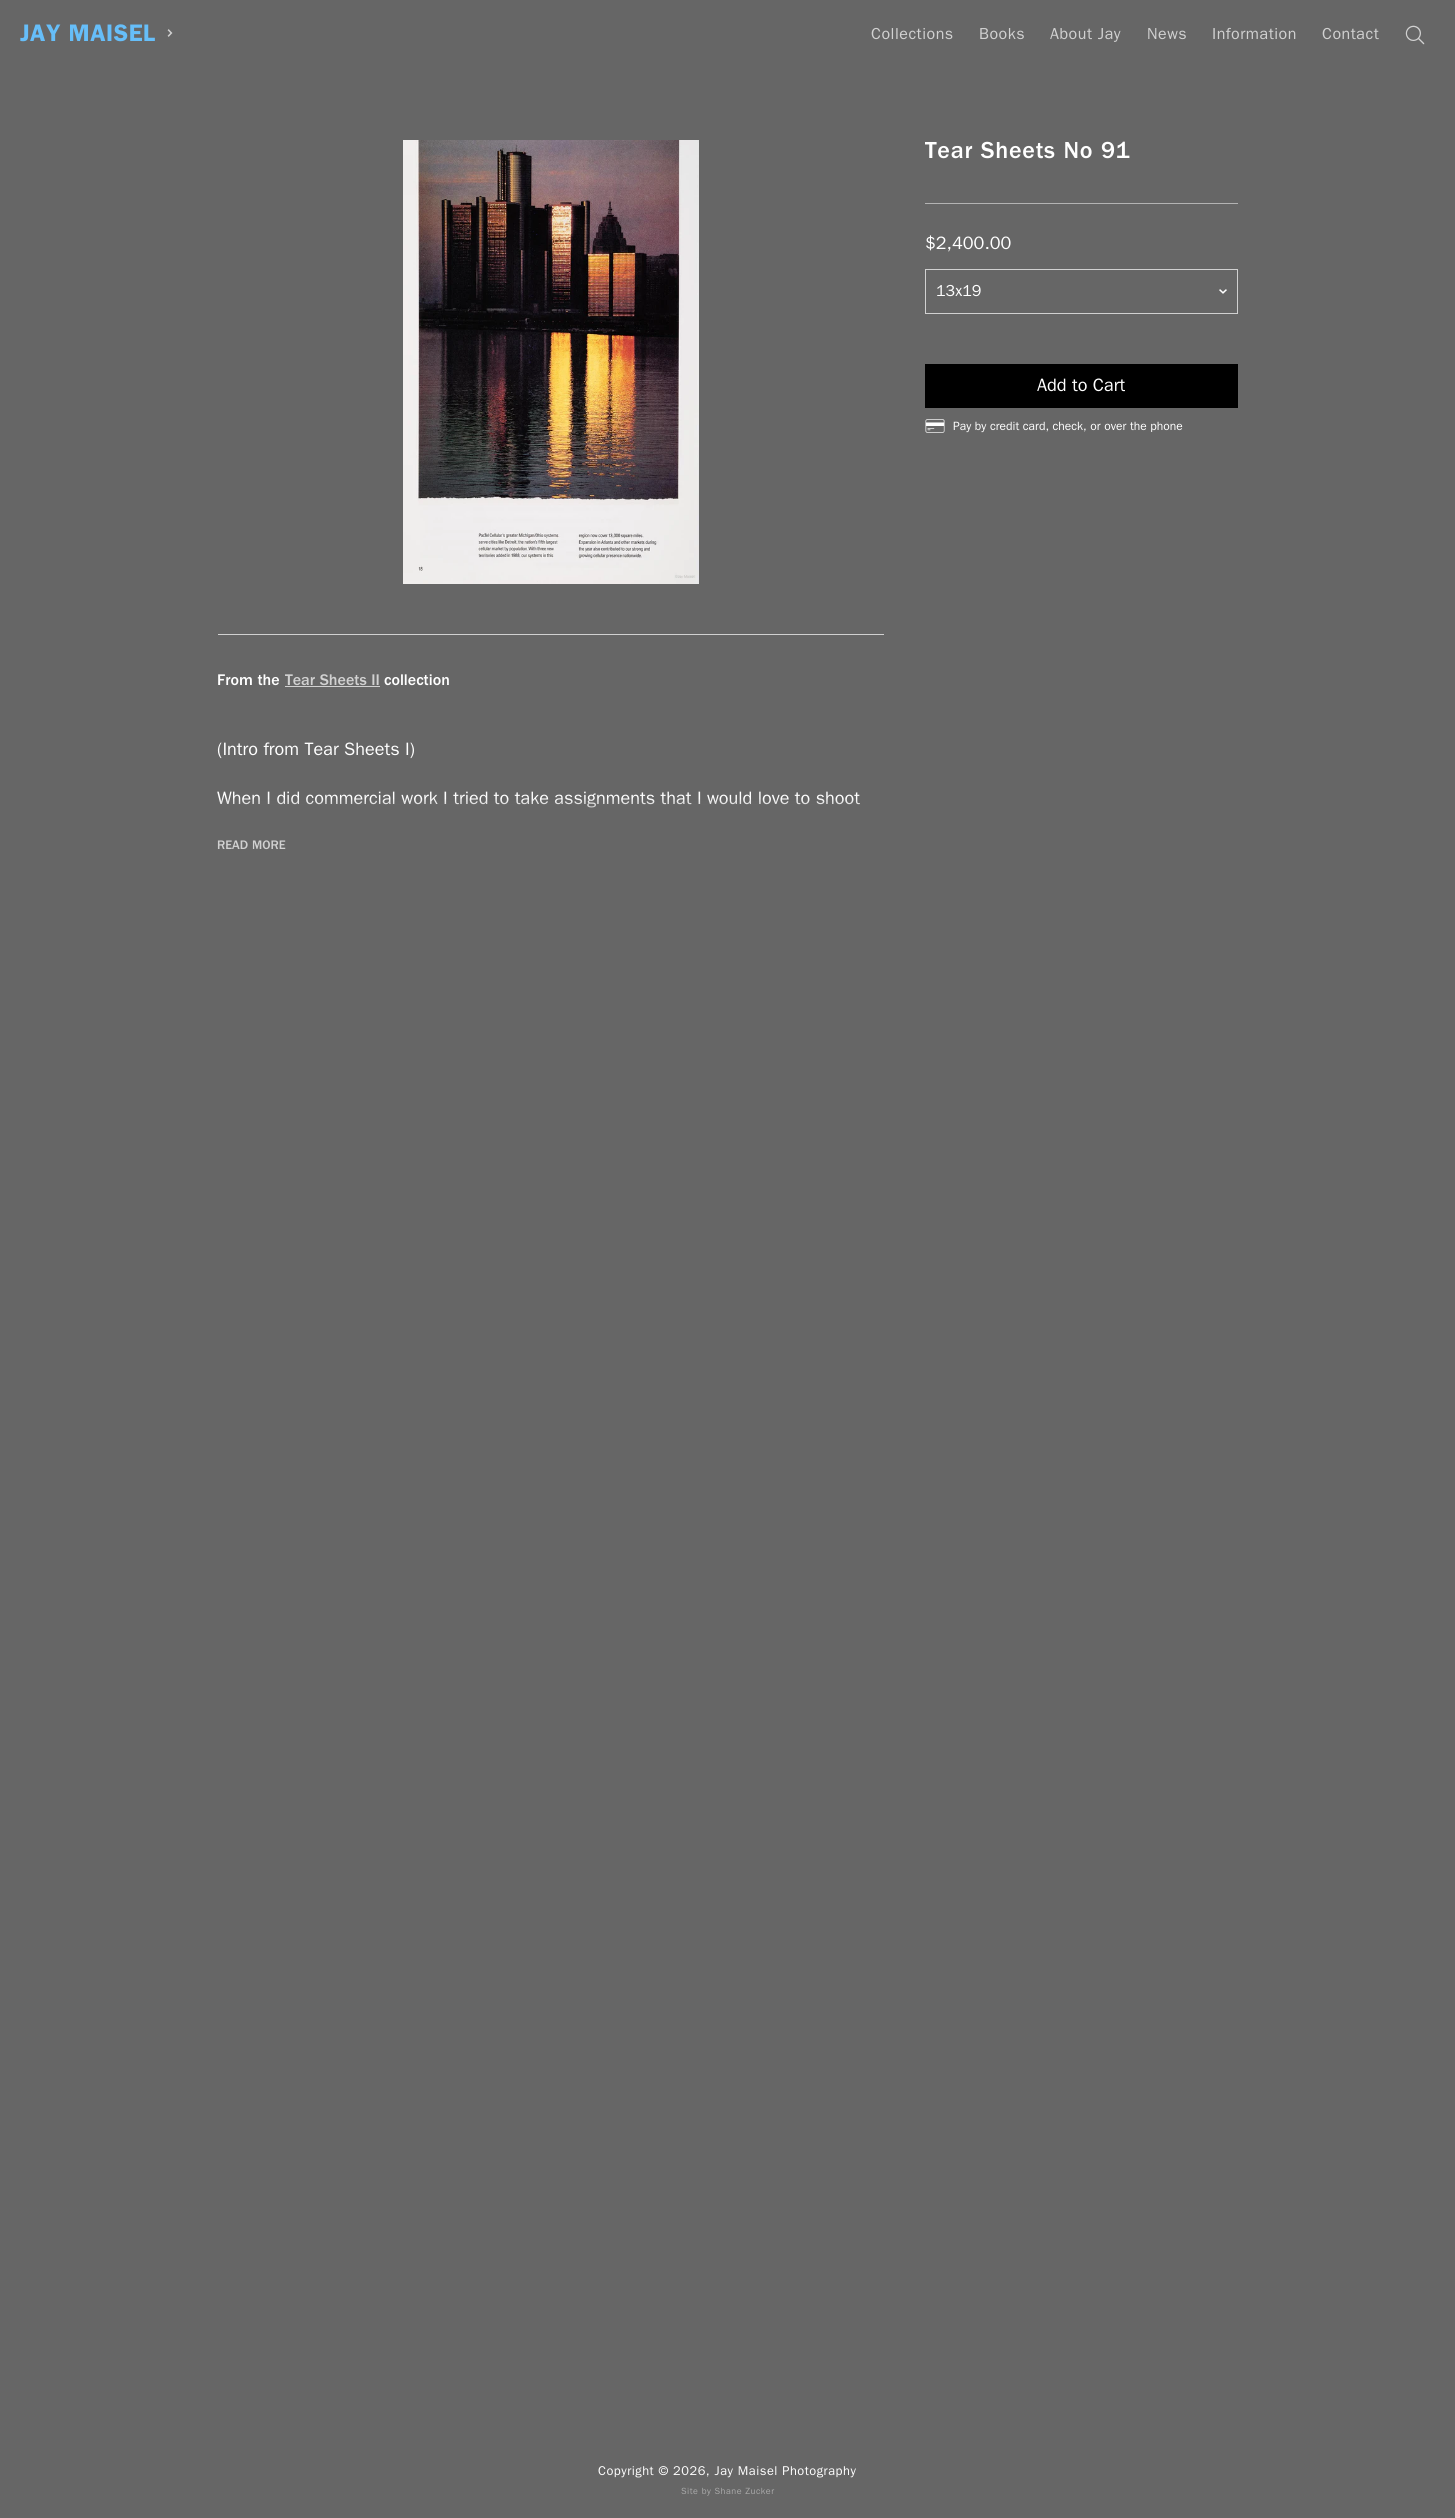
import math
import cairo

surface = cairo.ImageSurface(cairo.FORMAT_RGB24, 1455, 2518)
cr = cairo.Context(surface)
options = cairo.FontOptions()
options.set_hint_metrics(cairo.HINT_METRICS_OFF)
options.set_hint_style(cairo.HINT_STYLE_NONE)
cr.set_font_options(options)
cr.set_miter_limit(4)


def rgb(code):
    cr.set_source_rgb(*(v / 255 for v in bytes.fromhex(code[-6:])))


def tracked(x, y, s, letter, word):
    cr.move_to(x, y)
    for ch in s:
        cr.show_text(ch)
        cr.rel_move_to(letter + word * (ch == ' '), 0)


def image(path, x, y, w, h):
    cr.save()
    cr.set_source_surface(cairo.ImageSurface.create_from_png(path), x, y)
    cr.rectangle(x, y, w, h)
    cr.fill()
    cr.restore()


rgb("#666666")
cr.paint()
image("img/1.png", 167, 29, 6, 8)
image("img/2.png", 1405, 25, 20, 20)
rgb("#b3b3b3")
cr.rectangle(925, 203, 313, 1)
cr.fill()
image("img/3.png", 1219, 289, 8, 5)
cr.rectangle(925.5, 269.5, 312, 44)
rgb("#d1d1d1")
cr.set_line_width(1)
cr.stroke()
rgb("#000000")
cr.rectangle(925, 364, 313, 44)
cr.fill()
image("img/4.png", 925, 419, 20, 14)
image("img/5.png", 403, 140, 296, 444)
rgb("#d1d1d1")
cr.rectangle(218, 634, 666, 1)
cr.fill()
cr.rectangle(285, 686, 95, 1)
cr.fill()
cr.select_font_face("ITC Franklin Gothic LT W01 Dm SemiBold")
cr.set_font_size(24)
rgb("#66bef9")
tracked(20, 41, "JAY MAISEL", 0.5, 0)
cr.select_font_face("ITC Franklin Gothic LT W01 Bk")
cr.set_font_size(16)
rgb("#d1d1d1")
for x, y, s in [
    (871, 39, "Collections"),
    (979, 39, "Books"),
    (1050, 39, "About Jay"),
    (1147, 39, "News"),
    (1212, 39, "Information"),
    (1322, 39, "Contact"),
]:
    tracked(x, y, s, 0.5, 0)
cr.select_font_face("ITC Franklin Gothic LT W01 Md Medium")
cr.set_font_size(24)
rgb("#ffffff")
tracked(925, 158, "Tear Sheets No 91", 0.75, 0)
cr.select_font_face("ITC Franklin Gothic LT W01 Bk")
cr.set_font_size(18)
cr.move_to(925, 249)
cr.show_text("$2,400.00")
cr.set_font_size(16)
cr.move_to(936, 296)
cr.show_text("13x19")
cr.set_font_size(18)
cr.move_to(1037, 391)
cr.show_text("Add to Cart")
cr.set_font_size(12)
cr.move_to(953, 430)
cr.show_text("Pay by credit card, check, or over the phone")
cr.select_font_face("ITC Franklin Gothic LT W01 Md Medium")
cr.set_font_size(16)
cr.move_to(217, 685)
cr.show_text("From the")
rgb("#d1d1d1")
cr.move_to(285, 685)
cr.show_text("Tear Sheets II")
rgb("#ffffff")
cr.move_to(384, 685)
cr.show_text("collection")
cr.select_font_face("ITC Franklin Gothic LT W01 Bk")
cr.set_font_size(18)
cr.move_to(217, 755)
cr.show_text("(Intro from Tear Sheets I)")
cr.move_to(217, 804)
cr.show_text("When I did commercial work I tried to take assignments that I would love to shoot")
gradient = cairo.LinearGradient(551, 798, 551, 852)
gradient.add_color_stop_rgba(0, 0.4, 0.4, 0.4, 0)
gradient.add_color_stop_rgba(0.5, 0.4, 0.4, 0.4, 1)
cr.set_source(gradient)
cr.rectangle(220, 799, 641, 9)
cr.fill()
cr.select_font_face("ITC Franklin Gothic LT W01 Md Medium")
cr.set_font_size(12.8)
rgb("#d1d1d1")
cr.move_to(217, 849)
cr.show_text("READ MORE")
cr.select_font_face("ITC Franklin Gothic LT W01 Bk")
rgb("#ffffff")
tracked(598, 2475, "Copyright © 2026, Jay Maisel Photography", 0.5, 0)
cr.set_font_size(9)
rgb("#aaaaaa")
tracked(681, 2494, "Site by Shane Zucker", 0.5, 0)
surface.write_to_png("page.png")
